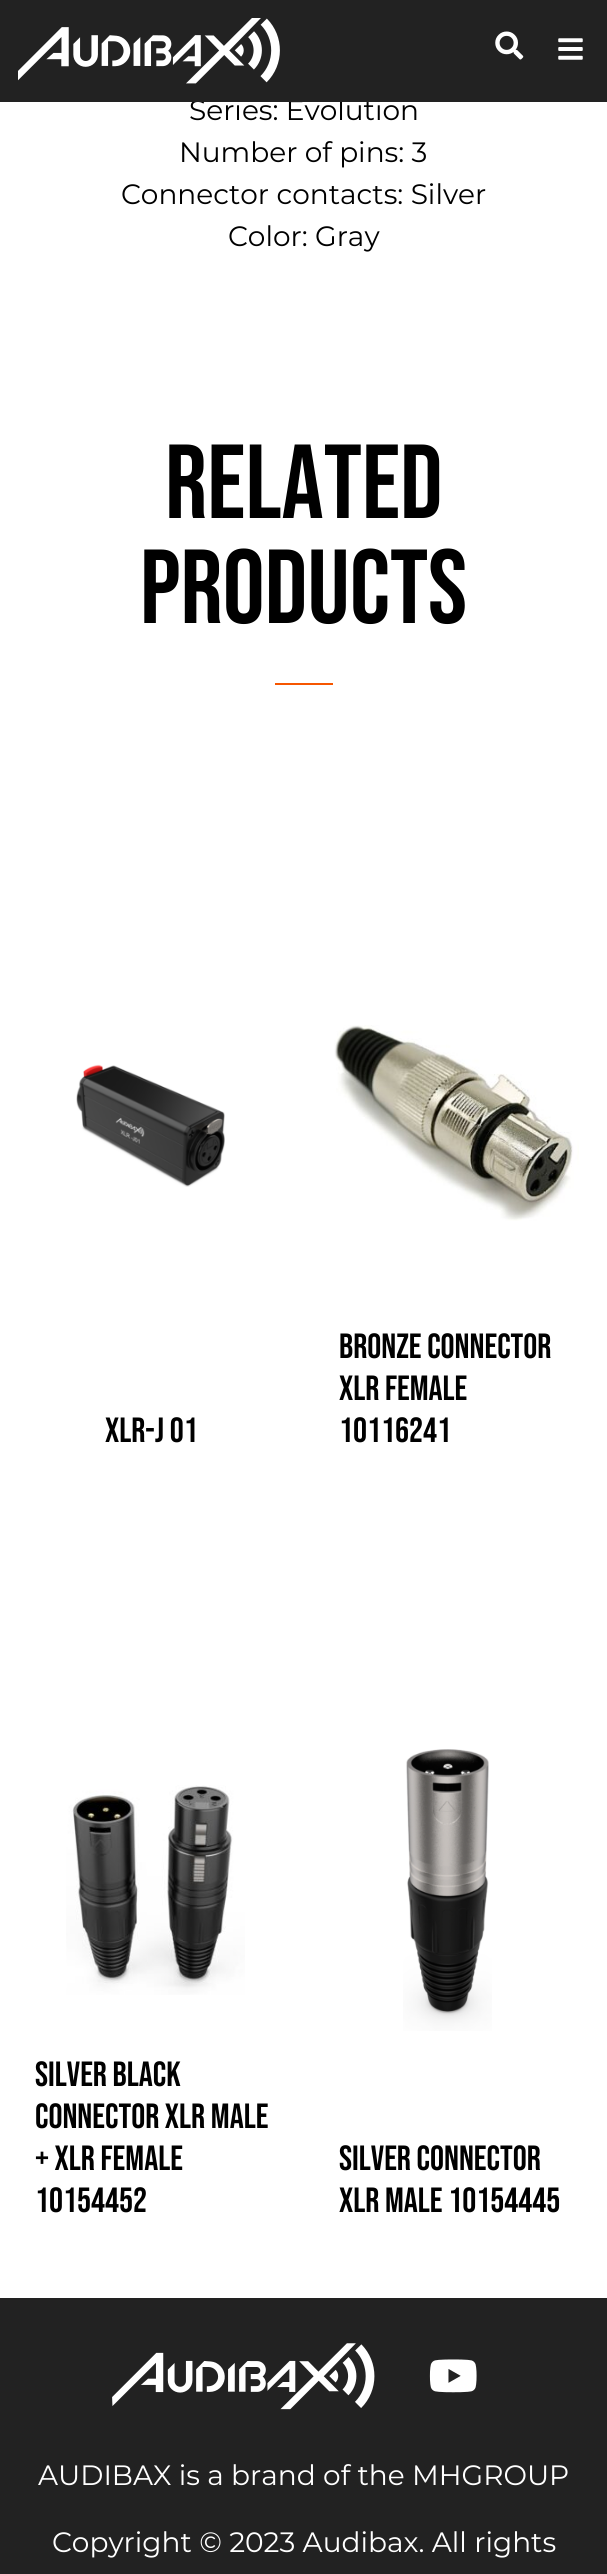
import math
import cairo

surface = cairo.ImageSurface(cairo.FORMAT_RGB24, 607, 2574)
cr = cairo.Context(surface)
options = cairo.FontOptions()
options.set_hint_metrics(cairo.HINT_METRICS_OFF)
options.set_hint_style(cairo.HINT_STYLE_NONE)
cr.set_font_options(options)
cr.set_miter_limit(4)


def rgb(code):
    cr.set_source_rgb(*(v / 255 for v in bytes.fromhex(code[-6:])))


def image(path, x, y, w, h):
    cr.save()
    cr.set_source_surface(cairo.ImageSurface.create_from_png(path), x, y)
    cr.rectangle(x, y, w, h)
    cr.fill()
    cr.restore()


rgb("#ffffff")
cr.paint()
rgb("#f65600")
cr.rectangle(275, 683, 58, 2)
cr.fill()
image("img/4.png", 76, 1064, 149, 123)
image("img/5.png", 334, 1025, 245, 196)
image("img/6.png", 66, 1785, 179, 210)
image("img/7.png", 403, 1749, 89, 282)
rgb("#222222")
cr.rectangle(0, 2298, 607, 276)
cr.fill()
image("img/8.png", 112, 2343, 263, 67)
image("img/9.png", 429, 2359, 48, 34)
cr.select_font_face("Montserrat")
cr.set_font_size(28)
rgb("#000000")
cr.move_to(189, 120)
cr.show_text("Series: Evolution")
rgb("#222222")
cr.rectangle(0, 0, 607, 102)
cr.fill()
image("img/3.png", 558, 38, 25, 22)
image("img/2.png", 495, 31, 29, 29)
image("img/1.png", 18, 18, 262, 66)
rgb("#000000")
for x, y, s in [
    (179, 162, "Number of pins: 3"),
    (121, 204, "Connector contacts: Silver"),
    (228, 246, "Color: Gray"),
]:
    cr.move_to(x, y)
    cr.show_text(s)
cr.select_font_face("Bebas Neue")
cr.set_font_size(105)
cr.move_to(165, 518)
cr.show_text("related")
cr.move_to(140, 623)
cr.show_text("products")
cr.set_font_size(35)
for x, y, s in [
    (105, 1442, "XLR-J 01"),
    (339, 1358, "Bronze Connector"),
    (339, 1400, "XLR Female"),
    (339, 1442, "10116241"),
    (35, 2086, "Silver Black"),
    (35, 2128, "Connector XLR Male"),
    (35, 2170, "+ XLR Female"),
    (35, 2212, "10154452"),
    (339, 2170, "Silver Connector"),
    (339, 2212, "XLR Male 10154445"),
]:
    cr.move_to(x, y)
    cr.show_text(s)
cr.select_font_face("Montserrat")
cr.set_font_size(28)
rgb("#ffffff")
cr.move_to(38, 2485)
cr.show_text("AUDIBAX is a brand of the MHGROUP")
cr.move_to(52, 2552)
cr.show_text("Copyright © 2023 Audibax. All rights")
surface.write_to_png("page.png")
